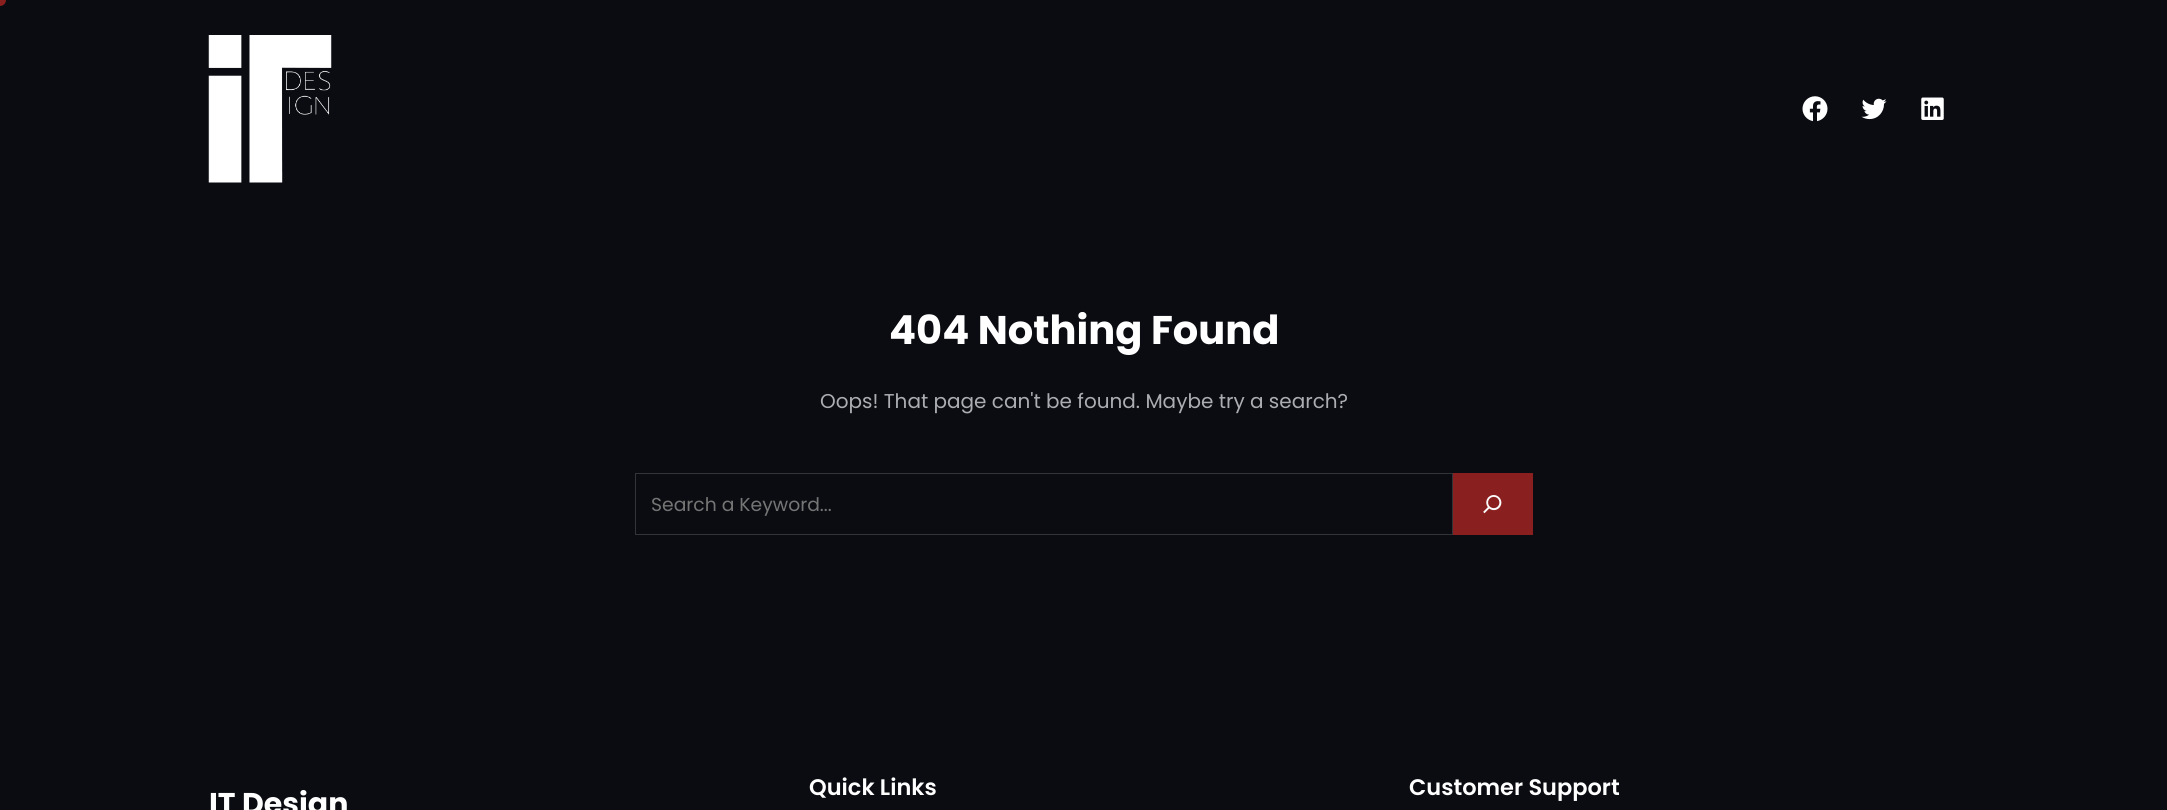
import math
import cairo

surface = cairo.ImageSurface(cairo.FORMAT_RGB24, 2167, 810)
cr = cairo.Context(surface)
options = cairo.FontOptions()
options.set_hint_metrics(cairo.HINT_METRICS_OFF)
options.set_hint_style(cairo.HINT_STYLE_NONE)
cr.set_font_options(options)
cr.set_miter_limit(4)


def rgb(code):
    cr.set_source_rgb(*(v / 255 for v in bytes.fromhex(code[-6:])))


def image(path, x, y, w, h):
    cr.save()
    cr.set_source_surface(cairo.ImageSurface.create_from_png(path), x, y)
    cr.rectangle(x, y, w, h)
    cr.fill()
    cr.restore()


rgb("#0a0c11")
cr.paint()
image("img/1.png", 208, 35, 124, 148)
image("img/2.png", 1802, 96, 26, 26)
image("img/3.png", 1861, 98, 26, 22)
image("img/4.png", 1921, 97, 23, 23)
cr.rectangle(635.5, 473.5, 817, 61)
rgb("#323438")
cr.set_line_width(1)
cr.stroke()
rgb("#8a1f1f")
cr.rectangle(1453, 473, 80, 62)
cr.fill()
image("img/5.png", 1483, 495, 19, 19)
cr.arc(0, 0, 6, 0, 2 * math.pi)
cr.fill()
cr.select_font_face("Poppins", cairo.FONT_SLANT_NORMAL, cairo.FONT_WEIGHT_BOLD)
cr.set_font_size(40)
rgb("#ffffff")
cr.move_to(889, 344)
cr.show_text("404 Nothing Found")
cr.select_font_face("Poppins")
cr.set_font_size(20)
rgb("#abadb3")
cr.move_to(820, 408)
cr.show_text("Oops! That page can't be found. Maybe try a search?")
cr.set_font_size(18.75)
rgb("#757575")
cr.move_to(651, 511)
cr.show_text("Search a Keyword...")
cr.select_font_face("Poppins", cairo.FONT_SLANT_NORMAL, cairo.FONT_WEIGHT_BOLD)
cr.set_font_size(30)
rgb("#ffffff")
cr.move_to(209, 814)
cr.show_text("IT Design")
cr.select_font_face("Poppins SemiBold")
cr.set_font_size(22.5)
cr.move_to(809, 795)
cr.show_text("Quick Links")
cr.move_to(1409, 795)
cr.show_text("Customer Support")
surface.write_to_png("page.png")
